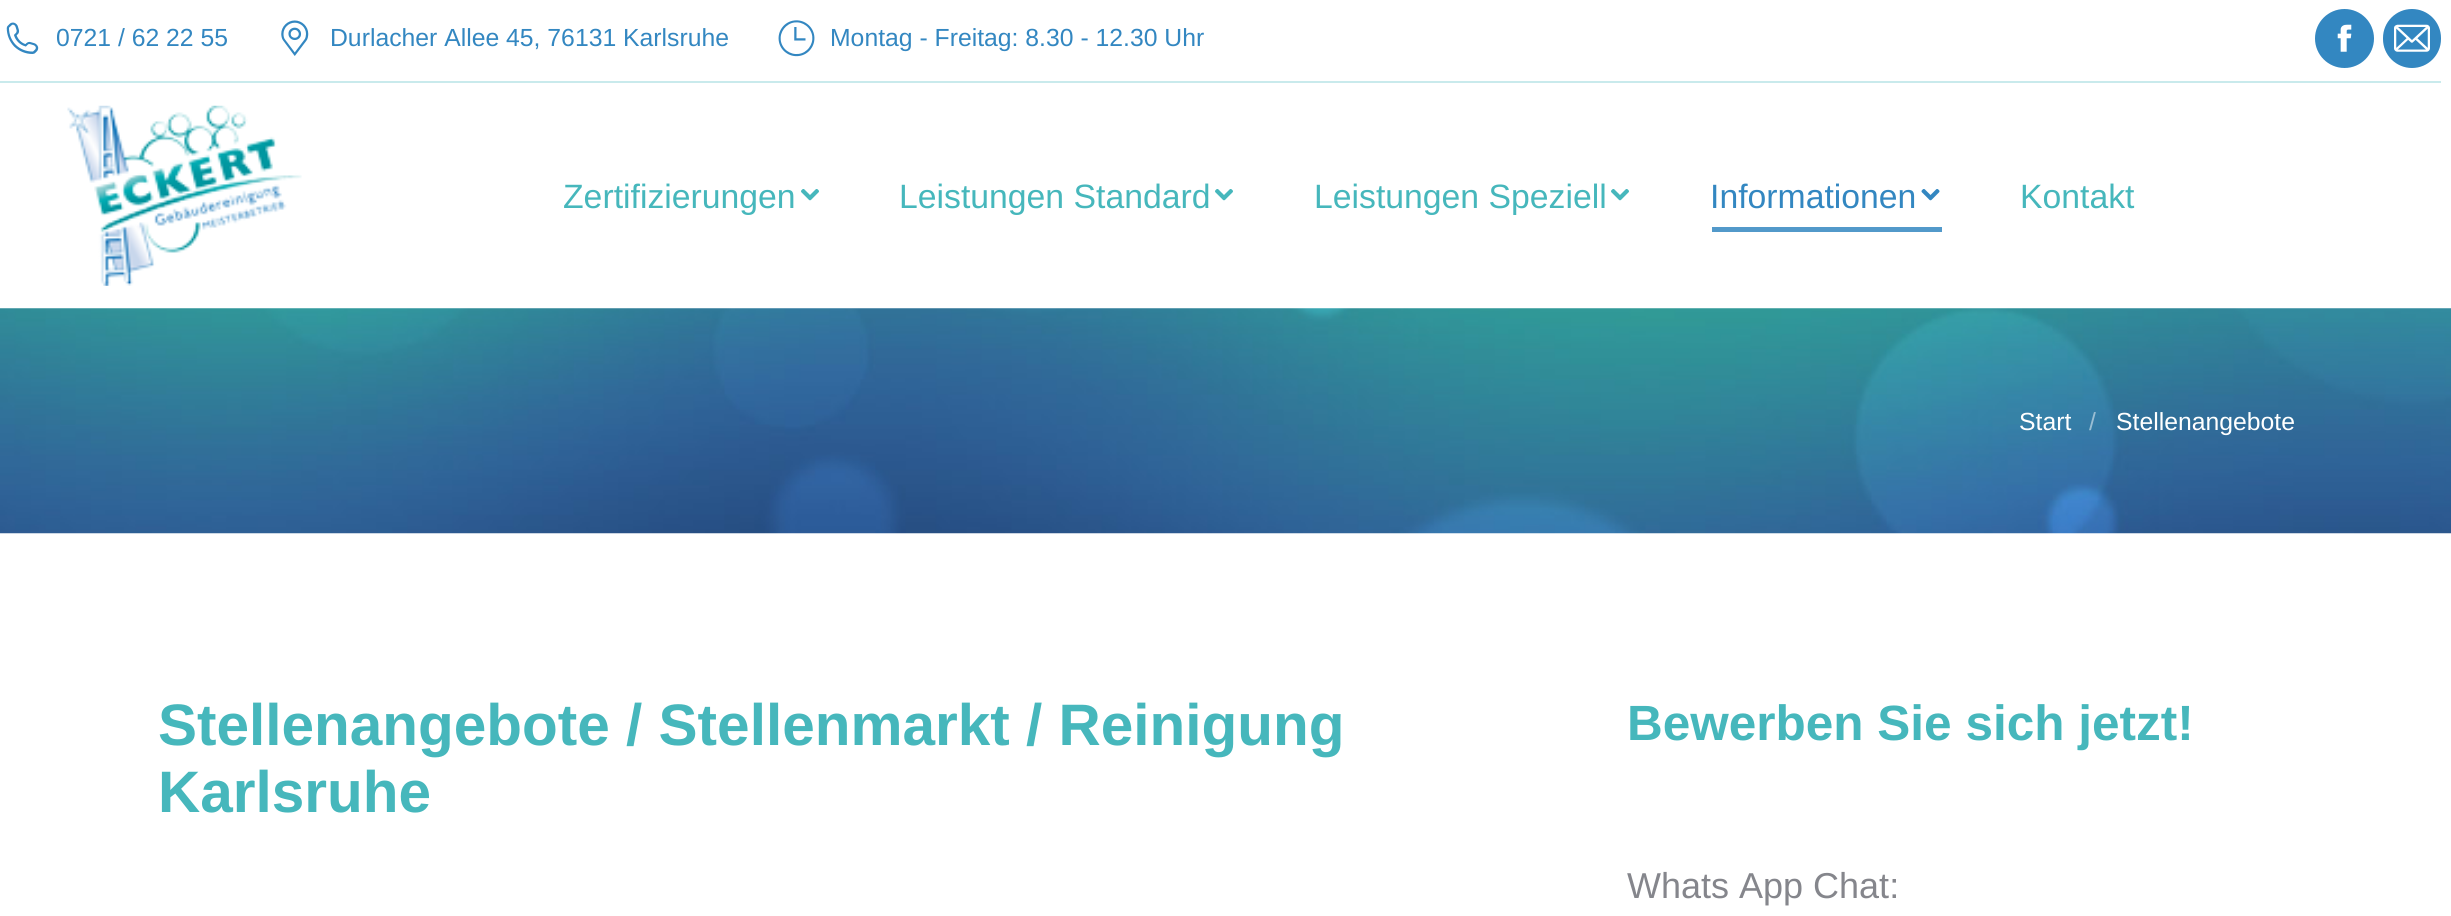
import math
import cairo

surface = cairo.ImageSurface(cairo.FORMAT_RGB24, 2451, 916)
cr = cairo.Context(surface)
options = cairo.FontOptions()
options.set_hint_metrics(cairo.HINT_METRICS_OFF)
options.set_hint_style(cairo.HINT_STYLE_NONE)
cr.set_font_options(options)
cr.set_miter_limit(4)


def rgb(code):
    cr.set_source_rgb(*(v / 255 for v in bytes.fromhex(code[-6:])))


def rrect(x, y, w, h, r):
    cr.new_sub_path()
    for i, (u, v) in enumerate([(x + w - r, y + h - r), (x + r, y + h - r), (x + r, y + r), (x + w - r, y + r)]):
        cr.arc(u, v, r, i * math.pi / 2, (i + 1) * math.pi / 2)
    cr.close_path()


def image(path, x, y, w, h):
    cr.save()
    cr.set_source_surface(cairo.ImageSurface.create_from_png(path), x, y)
    cr.rectangle(x, y, w, h)
    cr.fill()
    cr.restore()


rgb("#ffffff")
cr.paint()
image("img/1.png", 6, 22, 33, 32)
image("img/2.png", 281, 20, 28, 36)
image("img/3.png", 778, 20, 37, 37)
rgb("#3387c1")
cr.arc(2344.5, 38.5, 29.5, 0, 2 * math.pi)
cr.fill()
image("img/4.png", 2337, 24, 15, 28)
rrect(2383, 9, 58, 59, 29)
cr.fill()
image("img/5.png", 2394, 24, 36, 28)
rgb("#c9eaec")
cr.rectangle(0, 81, 2441, 2)
cr.fill()
image("img/6.png", 67, 105, 235, 181)
image("img/7.png", 801, 189, 18, 12)
image("img/7.png", 1215, 189, 18, 12)
image("img/7.png", 1611, 189, 18, 12)
image("img/8.png", 1921, 189, 19, 12)
rgb("#5299ca")
cr.rectangle(1712, 227, 230, 5)
cr.fill()
image("img/9.png", 0, 308, 2451, 226)
cr.select_font_face("Liberation Sans")
cr.set_font_size(24.75)
rgb("#3387c1")
for x, y, s in [
    (56, 46, "0721 / 62 22 55"),
    (330, 46, "Durlacher Allee 45, 76131 Karlsruhe"),
    (830, 46, "Montag - Freitag: 8.30 - 12.30 Uhr"),
]:
    cr.move_to(x, y)
    cr.show_text(s)
cr.set_font_size(33.75)
rgb("#46b7bc")
for x, y, s in [
    (563, 208, "Zertifizierungen"),
    (899, 208, "Leistungen Standard"),
    (1314, 208, "Leistungen Speziell"),
]:
    cr.move_to(x, y)
    cr.show_text(s)
rgb("#3387c1")
cr.move_to(1710, 208)
cr.show_text("Informationen")
rgb("#46b7bc")
cr.move_to(2020, 208)
cr.show_text("Kontakt")
cr.set_font_size(24.75)
rgb("#ffffff")
cr.move_to(2019, 430)
cr.show_text("Start")
rgb("#9abed3")
cr.move_to(2089, 430)
cr.show_text("/")
rgb("#ffffff")
cr.move_to(2116, 430)
cr.show_text("Stellenangebote")
cr.select_font_face("Liberation Sans", cairo.FONT_SLANT_NORMAL, cairo.FONT_WEIGHT_BOLD)
cr.set_font_size(58.5)
rgb("#46b7bc")
cr.move_to(158, 745)
cr.show_text("Stellenangebote / Stellenmarkt / Reinigung")
cr.move_to(158, 812)
cr.show_text("Karlsruhe")
cr.set_font_size(49.5)
cr.move_to(1627, 740)
cr.show_text("Bewerben Sie sich jetzt!")
cr.select_font_face("Liberation Sans")
cr.set_font_size(36)
rgb("#85868c")
cr.move_to(1627, 898)
cr.show_text("Whats App Chat:")
surface.write_to_png("page.png")
